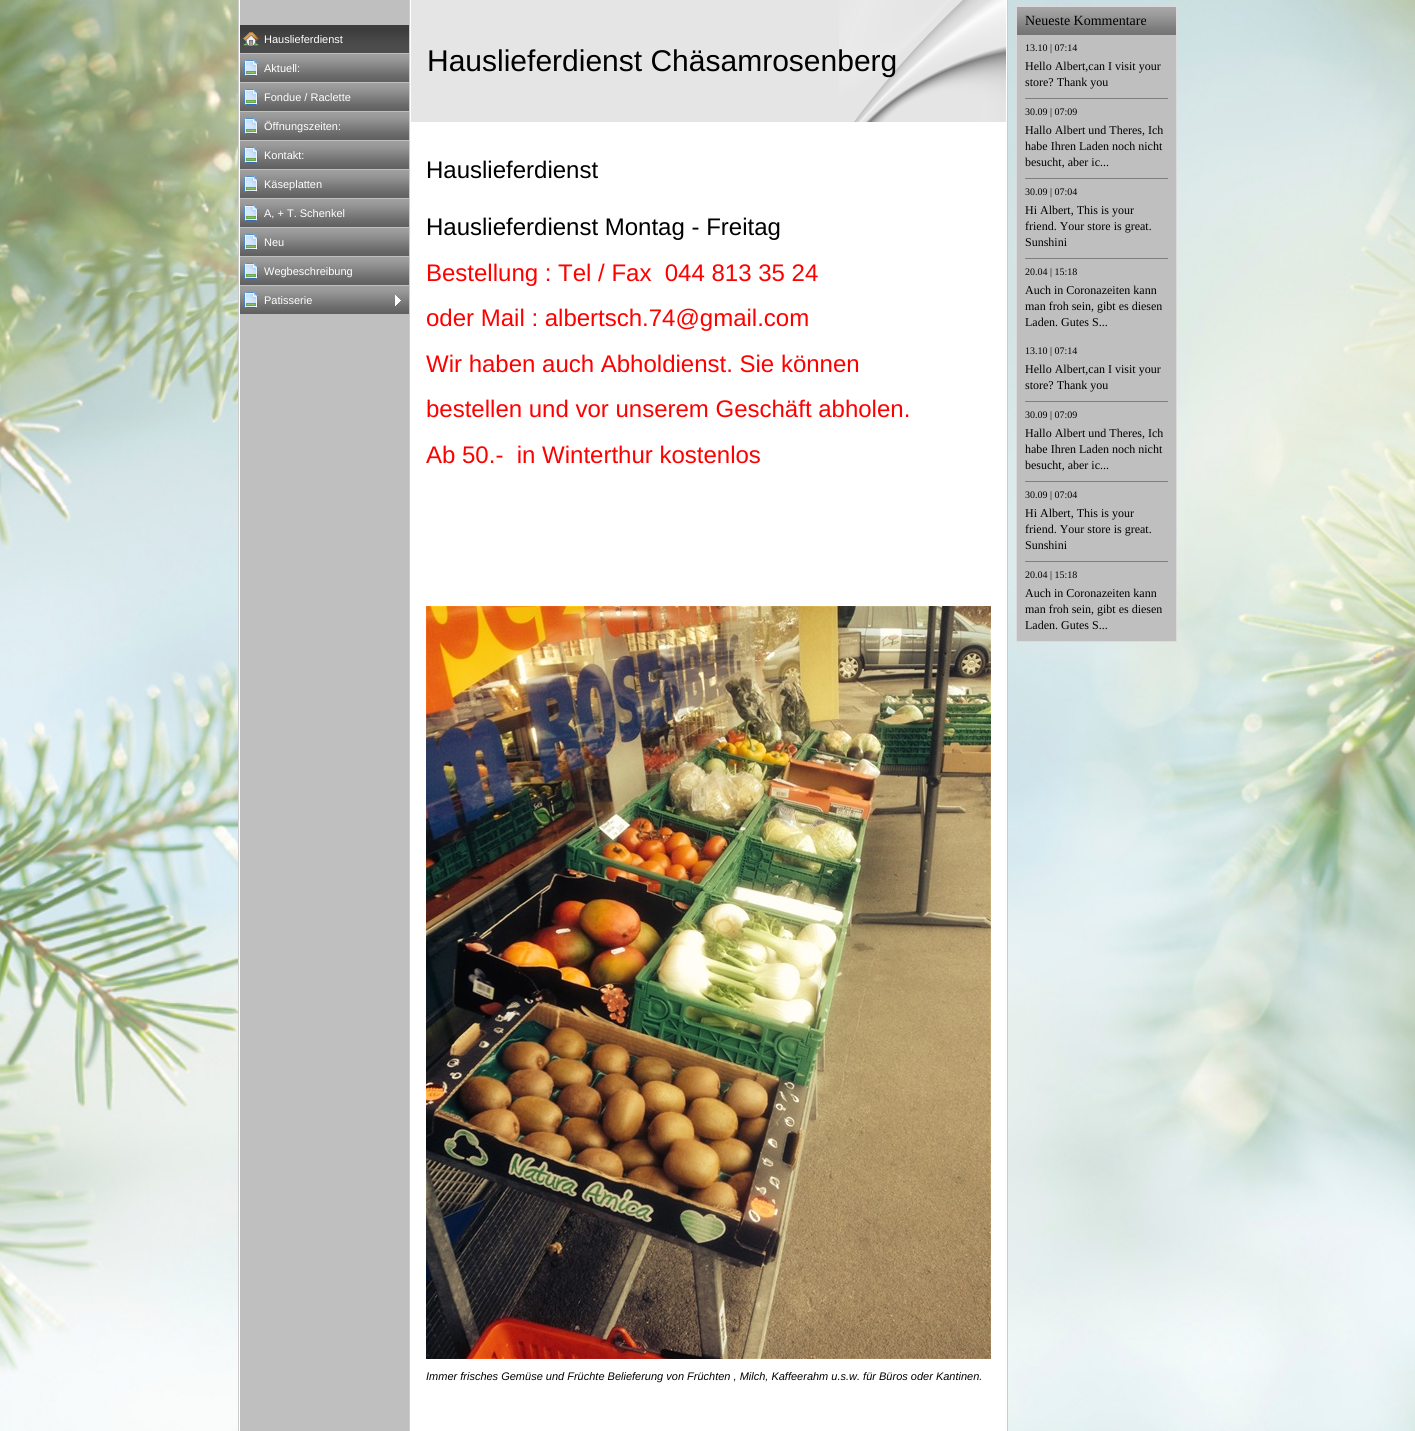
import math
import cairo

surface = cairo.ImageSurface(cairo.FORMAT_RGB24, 1415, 1431)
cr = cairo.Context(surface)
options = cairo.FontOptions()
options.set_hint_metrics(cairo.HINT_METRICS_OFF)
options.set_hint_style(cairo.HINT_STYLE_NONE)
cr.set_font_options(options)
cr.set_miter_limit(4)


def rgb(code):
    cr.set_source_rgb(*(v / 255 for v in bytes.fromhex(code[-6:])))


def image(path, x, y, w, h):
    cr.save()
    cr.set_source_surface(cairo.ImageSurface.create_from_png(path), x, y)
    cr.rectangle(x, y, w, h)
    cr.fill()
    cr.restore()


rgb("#ffffff")
cr.paint()
image("img/1.png", 0, 0, 1415, 1431)
for x, y, w, h, color in [
    (239, 0, 768, 1431, "#ffffff"),
    (238, 0, 1, 1431, "#cccccc"),
    (240, 0, 169, 1431, "#c0bfbf"),
]:
    rgb(color)
    cr.rectangle(x, y, w, h)
    cr.fill()
image("img/2.png", 240, 25, 169, 28)
image("img/3.png", 243, 32, 16, 14)
image("img/4.png", 240, 54, 169, 28)
image("img/5.png", 244, 60, 14, 16)
image("img/4.png", 240, 83, 169, 28)
image("img/5.png", 244, 89, 14, 16)
image("img/4.png", 240, 112, 169, 28)
image("img/5.png", 244, 118, 14, 16)
image("img/4.png", 240, 141, 169, 28)
image("img/5.png", 244, 147, 14, 16)
image("img/4.png", 240, 170, 169, 28)
image("img/5.png", 244, 176, 14, 16)
image("img/4.png", 240, 199, 169, 28)
image("img/5.png", 244, 205, 14, 16)
image("img/4.png", 240, 228, 169, 28)
image("img/5.png", 244, 234, 14, 16)
image("img/4.png", 240, 257, 169, 28)
image("img/5.png", 244, 263, 14, 16)
image("img/4.png", 240, 286, 169, 28)
image("img/5.png", 244, 292, 14, 16)
image("img/6.png", 395, 295, 6, 11)
rgb("#cccccc")
cr.rectangle(409, 0, 1, 1431)
cr.fill()
rgb("#e5e5e5")
cr.rectangle(411, 0, 595, 122)
cr.fill()
image("img/7.png", 839, 0, 167, 122)
image("img/8.png", 426, 606, 565, 753)
rgb("#cccccc")
cr.rectangle(1007, 0, 1, 1431)
cr.fill()
rgb("#c0bfbf")
cr.rectangle(1016.5, 6.5, 160, 635)
cr.fill_preserve()
rgb("#dadada")
cr.set_line_width(1)
cr.stroke()
image("img/9.png", 1017, 7, 159, 28)
image("img/10.png", 1025, 98, 143, 1)
image("img/10.png", 1025, 178, 143, 1)
image("img/10.png", 1025, 258, 143, 1)
image("img/10.png", 1025, 401, 143, 1)
image("img/10.png", 1025, 481, 143, 1)
image("img/10.png", 1025, 561, 143, 1)
cr.select_font_face("Liberation Sans")
cr.set_font_size(11)
rgb("#ffffff")
for x, y, s in [
    (264, 43, "Hauslieferdienst"),
    (264, 72, "Aktuell:"),
    (264, 101, "Fondue / Raclette"),
    (264, 130, "Öffnungszeiten:"),
    (264, 159, "Kontakt:"),
    (264, 188, "Käseplatten"),
    (264, 217, "A, + T. Schenkel"),
    (264, 246, "Neu"),
    (264, 275, "Wegbeschreibung"),
    (264, 304, "Patisserie"),
]:
    cr.move_to(x, y)
    cr.show_text(s)
cr.set_font_size(30)
rgb("#000000")
cr.move_to(427, 71)
cr.show_text("Hauslieferdienst Chäsamrosenberg")
cr.set_font_size(24)
cr.move_to(426, 178)
cr.show_text("Hauslieferdienst")
cr.move_to(426, 235)
cr.show_text("Hauslieferdienst Montag - Freitag")
rgb("#ff0000")
for x, y, s in [
    (426, 281, "Bestellung : Tel / Fax  044 813 35 24"),
    (426, 326, "oder Mail : albertsch.74@gmail.com"),
    (426, 372, "Wir haben auch Abholdienst. Sie können"),
    (426, 417, "bestellen und vor unserem Geschäft abholen."),
    (426, 463, "Ab 50.-  in Winterthur kostenlos"),
]:
    cr.move_to(x, y)
    cr.show_text(s)
cr.select_font_face("Liberation Sans", cairo.FONT_SLANT_ITALIC)
cr.set_font_size(11)
rgb("#000000")
cr.move_to(426, 1380)
cr.show_text("Immer frisches Gemüse und Früchte Belieferung von Früchten , Milch, Kaffeerahm u.s.w. für Büros oder Kantinen.")
cr.select_font_face("Liberation Serif")
cr.set_font_size(14)
cr.move_to(1025, 25)
cr.show_text("Neueste Kommentare")
cr.set_font_size(10)
cr.move_to(1025, 51)
cr.show_text("13.10 | 07:14")
cr.set_font_size(12)
cr.move_to(1025, 70)
cr.show_text("Hello Albert,can I visit your")
cr.move_to(1025, 86)
cr.show_text("store? Thank you")
cr.set_font_size(10)
cr.move_to(1025, 115)
cr.show_text("30.09 | 07:09")
cr.set_font_size(12)
for x, y, s in [
    (1025, 134, "Hallo Albert und Theres, Ich"),
    (1025, 150, "habe Ihren Laden noch nicht"),
    (1025, 166, "besucht, aber ic..."),
]:
    cr.move_to(x, y)
    cr.show_text(s)
cr.set_font_size(10)
cr.move_to(1025, 195)
cr.show_text("30.09 | 07:04")
cr.set_font_size(12)
for x, y, s in [
    (1025, 214, "Hi Albert, This is your"),
    (1025, 230, "friend. Your store is great."),
    (1025, 246, "Sunshini"),
]:
    cr.move_to(x, y)
    cr.show_text(s)
cr.set_font_size(10)
cr.move_to(1025, 275)
cr.show_text("20.04 | 15:18")
cr.set_font_size(12)
for x, y, s in [
    (1025, 294, "Auch in Coronazeiten kann"),
    (1025, 310, "man froh sein, gibt es diesen"),
    (1025, 326, "Laden. Gutes S..."),
]:
    cr.move_to(x, y)
    cr.show_text(s)
cr.set_font_size(10)
cr.move_to(1025, 354)
cr.show_text("13.10 | 07:14")
cr.set_font_size(12)
cr.move_to(1025, 373)
cr.show_text("Hello Albert,can I visit your")
cr.move_to(1025, 389)
cr.show_text("store? Thank you")
cr.set_font_size(10)
cr.move_to(1025, 418)
cr.show_text("30.09 | 07:09")
cr.set_font_size(12)
for x, y, s in [
    (1025, 437, "Hallo Albert und Theres, Ich"),
    (1025, 453, "habe Ihren Laden noch nicht"),
    (1025, 469, "besucht, aber ic..."),
]:
    cr.move_to(x, y)
    cr.show_text(s)
cr.set_font_size(10)
cr.move_to(1025, 498)
cr.show_text("30.09 | 07:04")
cr.set_font_size(12)
for x, y, s in [
    (1025, 517, "Hi Albert, This is your"),
    (1025, 533, "friend. Your store is great."),
    (1025, 549, "Sunshini"),
]:
    cr.move_to(x, y)
    cr.show_text(s)
cr.set_font_size(10)
cr.move_to(1025, 578)
cr.show_text("20.04 | 15:18")
cr.set_font_size(12)
for x, y, s in [
    (1025, 597, "Auch in Coronazeiten kann"),
    (1025, 613, "man froh sein, gibt es diesen"),
    (1025, 629, "Laden. Gutes S..."),
]:
    cr.move_to(x, y)
    cr.show_text(s)
surface.write_to_png("page.png")
